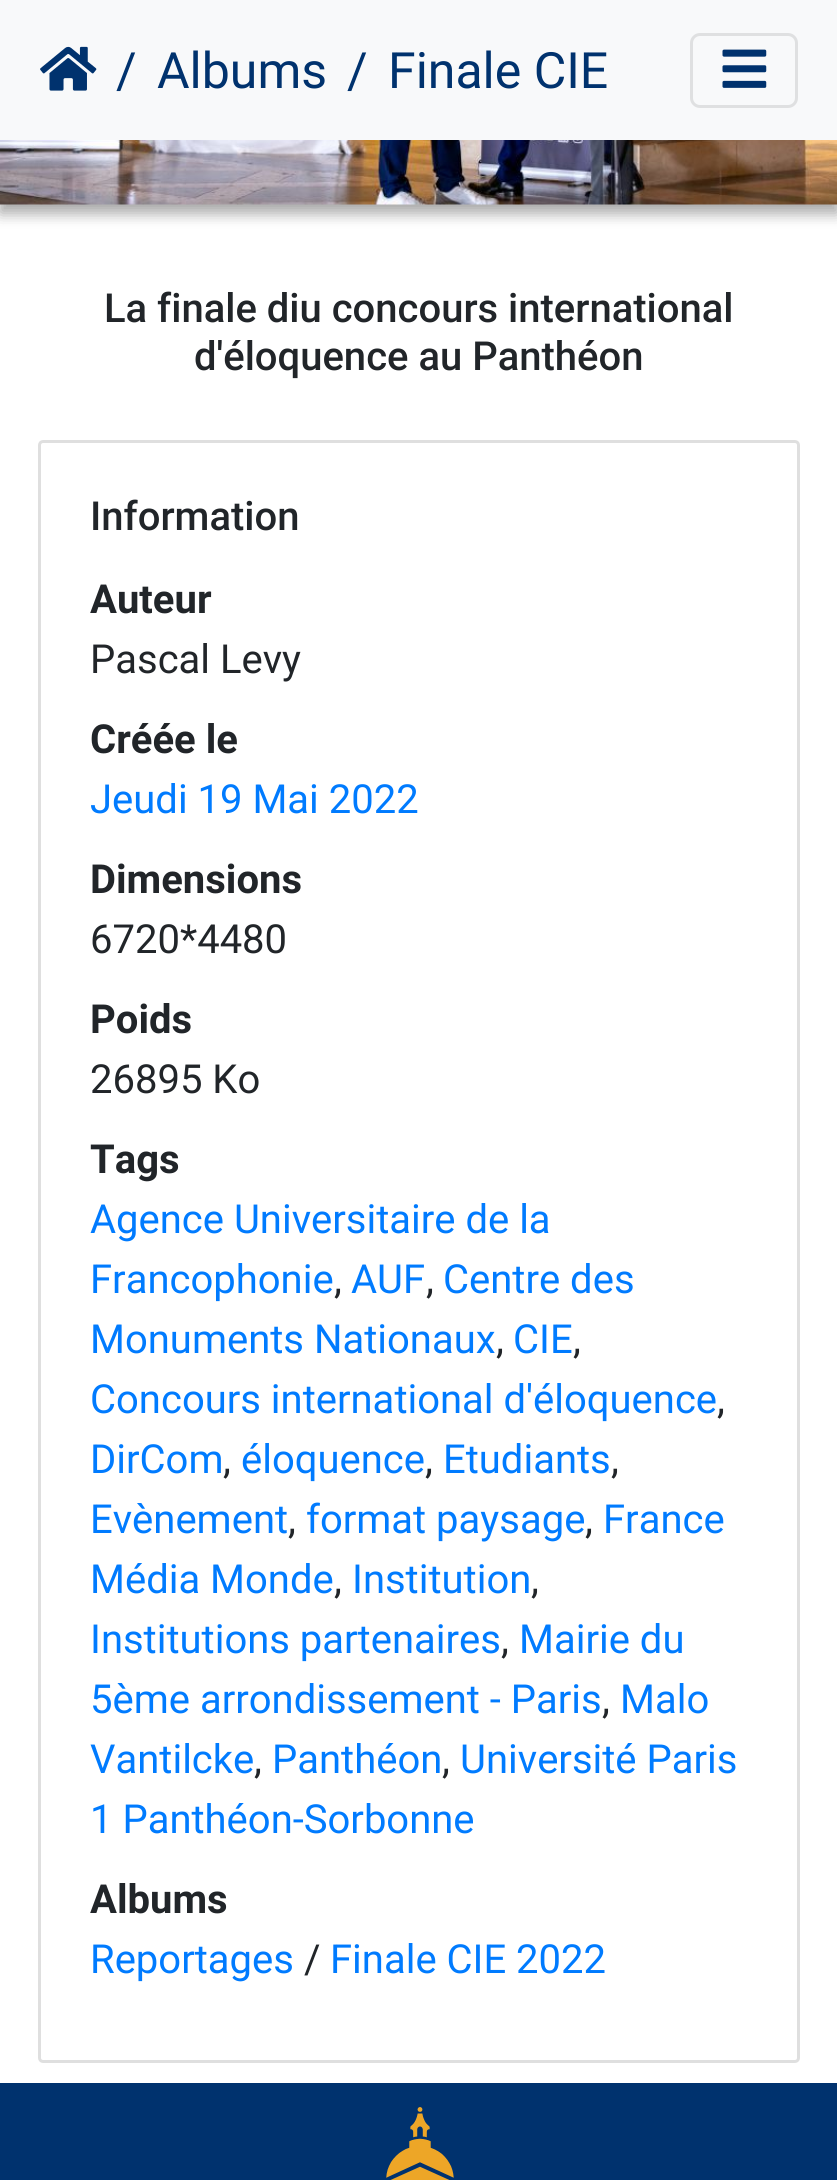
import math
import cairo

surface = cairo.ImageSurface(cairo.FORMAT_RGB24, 837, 2180)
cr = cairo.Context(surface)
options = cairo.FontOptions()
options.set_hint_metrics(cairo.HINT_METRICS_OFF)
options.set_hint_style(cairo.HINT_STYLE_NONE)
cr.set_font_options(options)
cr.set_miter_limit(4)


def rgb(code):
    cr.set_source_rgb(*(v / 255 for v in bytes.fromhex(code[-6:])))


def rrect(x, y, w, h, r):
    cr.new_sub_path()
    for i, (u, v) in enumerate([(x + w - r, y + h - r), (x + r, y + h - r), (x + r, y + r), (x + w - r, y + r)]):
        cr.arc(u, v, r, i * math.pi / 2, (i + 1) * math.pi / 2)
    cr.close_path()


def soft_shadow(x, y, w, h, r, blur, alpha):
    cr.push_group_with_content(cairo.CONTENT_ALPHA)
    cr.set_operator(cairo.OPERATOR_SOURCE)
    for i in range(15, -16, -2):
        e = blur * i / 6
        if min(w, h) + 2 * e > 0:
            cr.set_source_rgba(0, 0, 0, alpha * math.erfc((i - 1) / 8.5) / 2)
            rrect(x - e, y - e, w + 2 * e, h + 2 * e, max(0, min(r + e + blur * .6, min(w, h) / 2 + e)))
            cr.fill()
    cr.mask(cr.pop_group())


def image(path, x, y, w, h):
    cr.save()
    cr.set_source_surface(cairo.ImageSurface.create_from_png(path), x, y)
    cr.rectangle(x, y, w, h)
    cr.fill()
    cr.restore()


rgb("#ffffff")
cr.paint()
rgb("#000000")
soft_shadow(0, -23, 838, 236, 0, 7.5, 0.23)
soft_shadow(0, -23, 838, 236, 0, 7.5, 0.16)
rgb("#f8f9fa")
cr.rectangle(0, 0, 837, 140)
cr.fill()
image("img/1.png", 40, 46, 57, 45)
rrect(691.5, 34.5, 105, 72, 8.5)
rgb("#dfe0e1")
cr.set_line_width(3)
cr.stroke()
image("img/2.png", 722, 49, 45, 39)
image("img/3.png", 0, 140, 837, 65)
rrect(39.5, 441.5, 759, 1620, 3.5)
rgb("#dfdfdf")
cr.stroke()
rgb("#00326e")
cr.rectangle(0, 2083, 837, 97)
cr.fill()
image("img/4.png", 386, 2107, 68, 73)
cr.select_font_face("Roboto")
cr.set_font_size(50)
for x, y, s in [
    (116, 88, "/"),
    (157, 88, "Albums"),
    (347, 88, "/"),
    (388, 88, "Finale CIE"),
]:
    cr.move_to(x, y)
    cr.show_text(s)
cr.select_font_face("Roboto Medium")
cr.set_font_size(40)
rgb("#212529")
for x, y, s in [
    (104, 322, "La finale diu concours international"),
    (194, 370, "d'éloquence au Panthéon"),
    (90, 530, "Information"),
]:
    cr.move_to(x, y)
    cr.show_text(s)
cr.select_font_face("Roboto", cairo.FONT_SLANT_NORMAL, cairo.FONT_WEIGHT_BOLD)
cr.move_to(90, 613)
cr.show_text("Auteur")
cr.select_font_face("Roboto")
cr.move_to(90, 673)
cr.show_text("Pascal Levy")
cr.select_font_face("Roboto", cairo.FONT_SLANT_NORMAL, cairo.FONT_WEIGHT_BOLD)
cr.move_to(90, 753)
cr.show_text("Créée le")
cr.select_font_face("Roboto")
rgb("#007bff")
cr.move_to(90, 813)
cr.show_text("Jeudi 19 Mai 2022")
cr.select_font_face("Roboto", cairo.FONT_SLANT_NORMAL, cairo.FONT_WEIGHT_BOLD)
rgb("#212529")
cr.move_to(90, 893)
cr.show_text("Dimensions")
cr.select_font_face("Roboto")
cr.move_to(90, 953)
cr.show_text("6720*4480")
cr.select_font_face("Roboto", cairo.FONT_SLANT_NORMAL, cairo.FONT_WEIGHT_BOLD)
cr.move_to(90, 1033)
cr.show_text("Poids")
cr.select_font_face("Roboto")
cr.move_to(90, 1093)
cr.show_text("26895 Ko")
cr.select_font_face("Roboto", cairo.FONT_SLANT_NORMAL, cairo.FONT_WEIGHT_BOLD)
cr.move_to(90, 1173)
cr.show_text("Tags")
cr.select_font_face("Roboto")
rgb("#007bff")
cr.move_to(90, 1233)
cr.show_text("Agence Universitaire de la")
cr.move_to(90, 1293)
cr.show_text("Francophonie")
rgb("#212529")
cr.move_to(334, 1293)
cr.show_text(",")
rgb("#007bff")
cr.move_to(351, 1293)
cr.show_text("AUF")
rgb("#212529")
cr.move_to(426, 1293)
cr.show_text(",")
rgb("#007bff")
cr.move_to(443, 1293)
cr.show_text("Centre des")
cr.move_to(90, 1353)
cr.show_text("Monuments Nationaux")
rgb("#212529")
cr.move_to(496, 1353)
cr.show_text(",")
rgb("#007bff")
cr.move_to(513, 1353)
cr.show_text("CIE")
rgb("#212529")
cr.move_to(573, 1353)
cr.show_text(",")
rgb("#007bff")
cr.move_to(90, 1413)
cr.show_text("Concours international d'éloquence")
rgb("#212529")
cr.move_to(717, 1413)
cr.show_text(",")
rgb("#007bff")
cr.move_to(90, 1473)
cr.show_text("DirCom")
rgb("#212529")
cr.move_to(223, 1473)
cr.show_text(",")
rgb("#007bff")
cr.move_to(241, 1473)
cr.show_text("éloquence")
rgb("#212529")
cr.move_to(425, 1473)
cr.show_text(",")
rgb("#007bff")
cr.move_to(443, 1473)
cr.show_text("Etudiants")
rgb("#212529")
cr.move_to(611, 1473)
cr.show_text(",")
rgb("#007bff")
cr.move_to(90, 1533)
cr.show_text("Evènement")
rgb("#212529")
cr.move_to(288, 1533)
cr.show_text(",")
rgb("#007bff")
cr.move_to(306, 1533)
cr.show_text("format paysage")
rgb("#212529")
cr.move_to(585, 1533)
cr.show_text(",")
rgb("#007bff")
cr.move_to(603, 1533)
cr.show_text("France")
cr.move_to(90, 1593)
cr.show_text("Média Monde")
rgb("#212529")
cr.move_to(334, 1593)
cr.show_text(",")
rgb("#007bff")
cr.move_to(352, 1593)
cr.show_text("Institution")
rgb("#212529")
cr.move_to(531, 1593)
cr.show_text(",")
rgb("#007bff")
cr.move_to(90, 1653)
cr.show_text("Institutions partenaires")
rgb("#212529")
cr.move_to(501, 1653)
cr.show_text(",")
rgb("#007bff")
cr.move_to(519, 1653)
cr.show_text("Mairie du")
cr.move_to(90, 1713)
cr.show_text("5ème arrondissement - Paris")
rgb("#212529")
cr.move_to(602, 1713)
cr.show_text(",")
rgb("#007bff")
cr.move_to(620, 1713)
cr.show_text("Malo")
cr.move_to(90, 1773)
cr.show_text("Vantilcke")
rgb("#212529")
cr.move_to(254, 1773)
cr.show_text(",")
rgb("#007bff")
cr.move_to(272, 1773)
cr.show_text("Panthéon")
rgb("#212529")
cr.move_to(442, 1773)
cr.show_text(",")
rgb("#007bff")
cr.move_to(460, 1773)
cr.show_text("Université Paris")
cr.move_to(90, 1833)
cr.show_text("1 Panthéon-Sorbonne")
cr.select_font_face("Roboto", cairo.FONT_SLANT_NORMAL, cairo.FONT_WEIGHT_BOLD)
rgb("#212529")
cr.move_to(90, 1913)
cr.show_text("Albums")
cr.select_font_face("Roboto")
rgb("#007bff")
cr.move_to(90, 1973)
cr.show_text("Reportages")
rgb("#212529")
cr.move_to(304, 1973)
cr.show_text("/")
rgb("#007bff")
cr.move_to(330, 1973)
cr.show_text("Finale CIE 2022")
surface.write_to_png("page.png")
